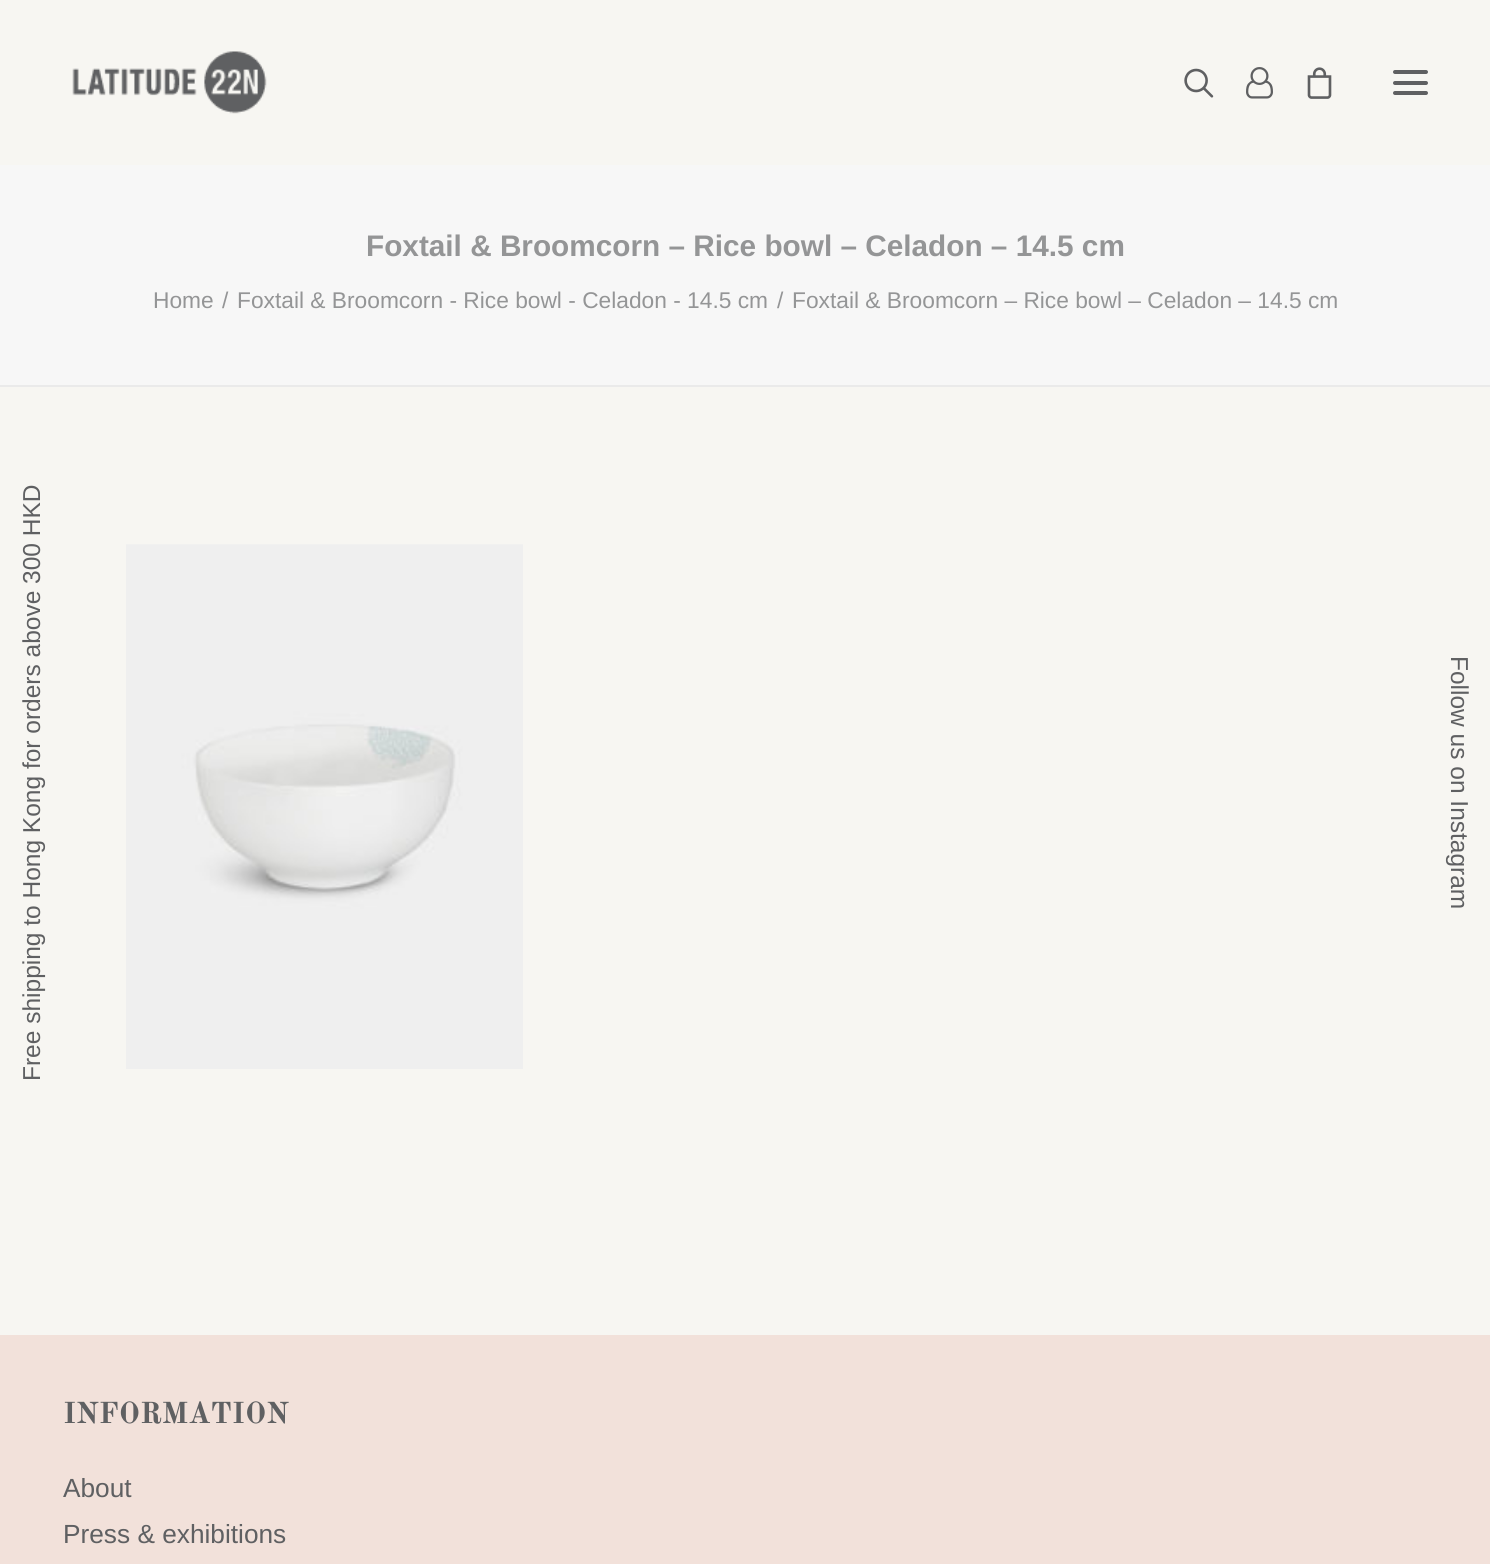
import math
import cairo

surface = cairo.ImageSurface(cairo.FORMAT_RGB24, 1490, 1564)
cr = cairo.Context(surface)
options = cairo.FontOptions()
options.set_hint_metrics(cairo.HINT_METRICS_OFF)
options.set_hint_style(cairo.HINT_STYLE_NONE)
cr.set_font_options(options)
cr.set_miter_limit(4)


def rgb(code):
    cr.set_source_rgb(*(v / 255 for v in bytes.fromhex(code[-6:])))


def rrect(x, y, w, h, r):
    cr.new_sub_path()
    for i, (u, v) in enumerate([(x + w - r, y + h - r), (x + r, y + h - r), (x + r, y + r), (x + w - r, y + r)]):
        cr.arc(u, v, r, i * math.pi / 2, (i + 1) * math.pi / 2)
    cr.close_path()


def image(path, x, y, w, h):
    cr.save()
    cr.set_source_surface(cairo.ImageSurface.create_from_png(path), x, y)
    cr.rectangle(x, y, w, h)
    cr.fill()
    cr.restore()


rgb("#f7f6f2")
cr.paint()
image("img/1.png", 72, 51, 195, 63)
image("img/2.png", 1184, 68, 30, 30)
image("img/3.png", 1246, 67, 27, 32)
image("img/4.png", 1307, 67, 25, 32)
rgb("#5f6062")
rrect(1393, 81, 35, 4, 2)
cr.fill()
rrect(1393, 70, 35, 4, 2)
cr.fill()
rrect(1393, 91, 35, 4, 2)
cr.fill()
rgb("#f7f7f7")
cr.rectangle(0, 165, 1490, 220)
cr.fill()
rgb("#eaeaea")
cr.rectangle(0, 385, 1490, 2)
cr.fill()
image("img/5.png", 126, 544, 397, 525)
rgb("#f2e1da")
cr.rectangle(0, 1335, 1490, 229)
cr.fill()
cr.select_font_face("Liberation Sans", cairo.FONT_SLANT_NORMAL, cairo.FONT_WEIGHT_BOLD)
cr.set_font_size(29.75)
rgb("#949596")
cr.move_to(366, 256)
cr.show_text("Foxtail & Broomcorn – Rice bowl – Celadon – 14.5 cm")
cr.select_font_face("Liberation Sans")
cr.set_font_size(22.75)
for x, y, s in [
    (153, 308, "Home"),
    (222, 308, "/"),
    (237, 308, "Foxtail & Broomcorn - Rice bowl - Celadon - 14.5 cm"),
    (777, 308, "/"),
    (792, 308, "Foxtail & Broomcorn – Rice bowl – Celadon – 14.5 cm"),
]:
    cr.move_to(x, y)
    cr.show_text(s)
cr.set_font_size(24.5)
rgb("#5f6062")
cr.save()
cr.translate(40, 1081)
cr.rotate(-90 * math.pi / 180)
cr.move_to(0, 0)
cr.show_text("Free shipping to Hong Kong for orders above 300 HKD")
cr.restore()
cr.save()
cr.translate(1451, 656)
cr.rotate(90 * math.pi / 180)
cr.move_to(0, 0)
cr.show_text("Follow us on Instagram")
cr.restore()
cr.select_font_face("Old Standard TT", cairo.FONT_SLANT_NORMAL, cairo.FONT_WEIGHT_BOLD)
cr.set_font_size(29.75)
cr.move_to(63, 1423)
cr.show_text("INFORMATION")
cr.select_font_face("Liberation Sans")
cr.set_font_size(26.25)
cr.move_to(63, 1497)
cr.show_text("About")
cr.move_to(63, 1543)
cr.show_text("Press & exhibitions")
surface.write_to_png("page.png")
